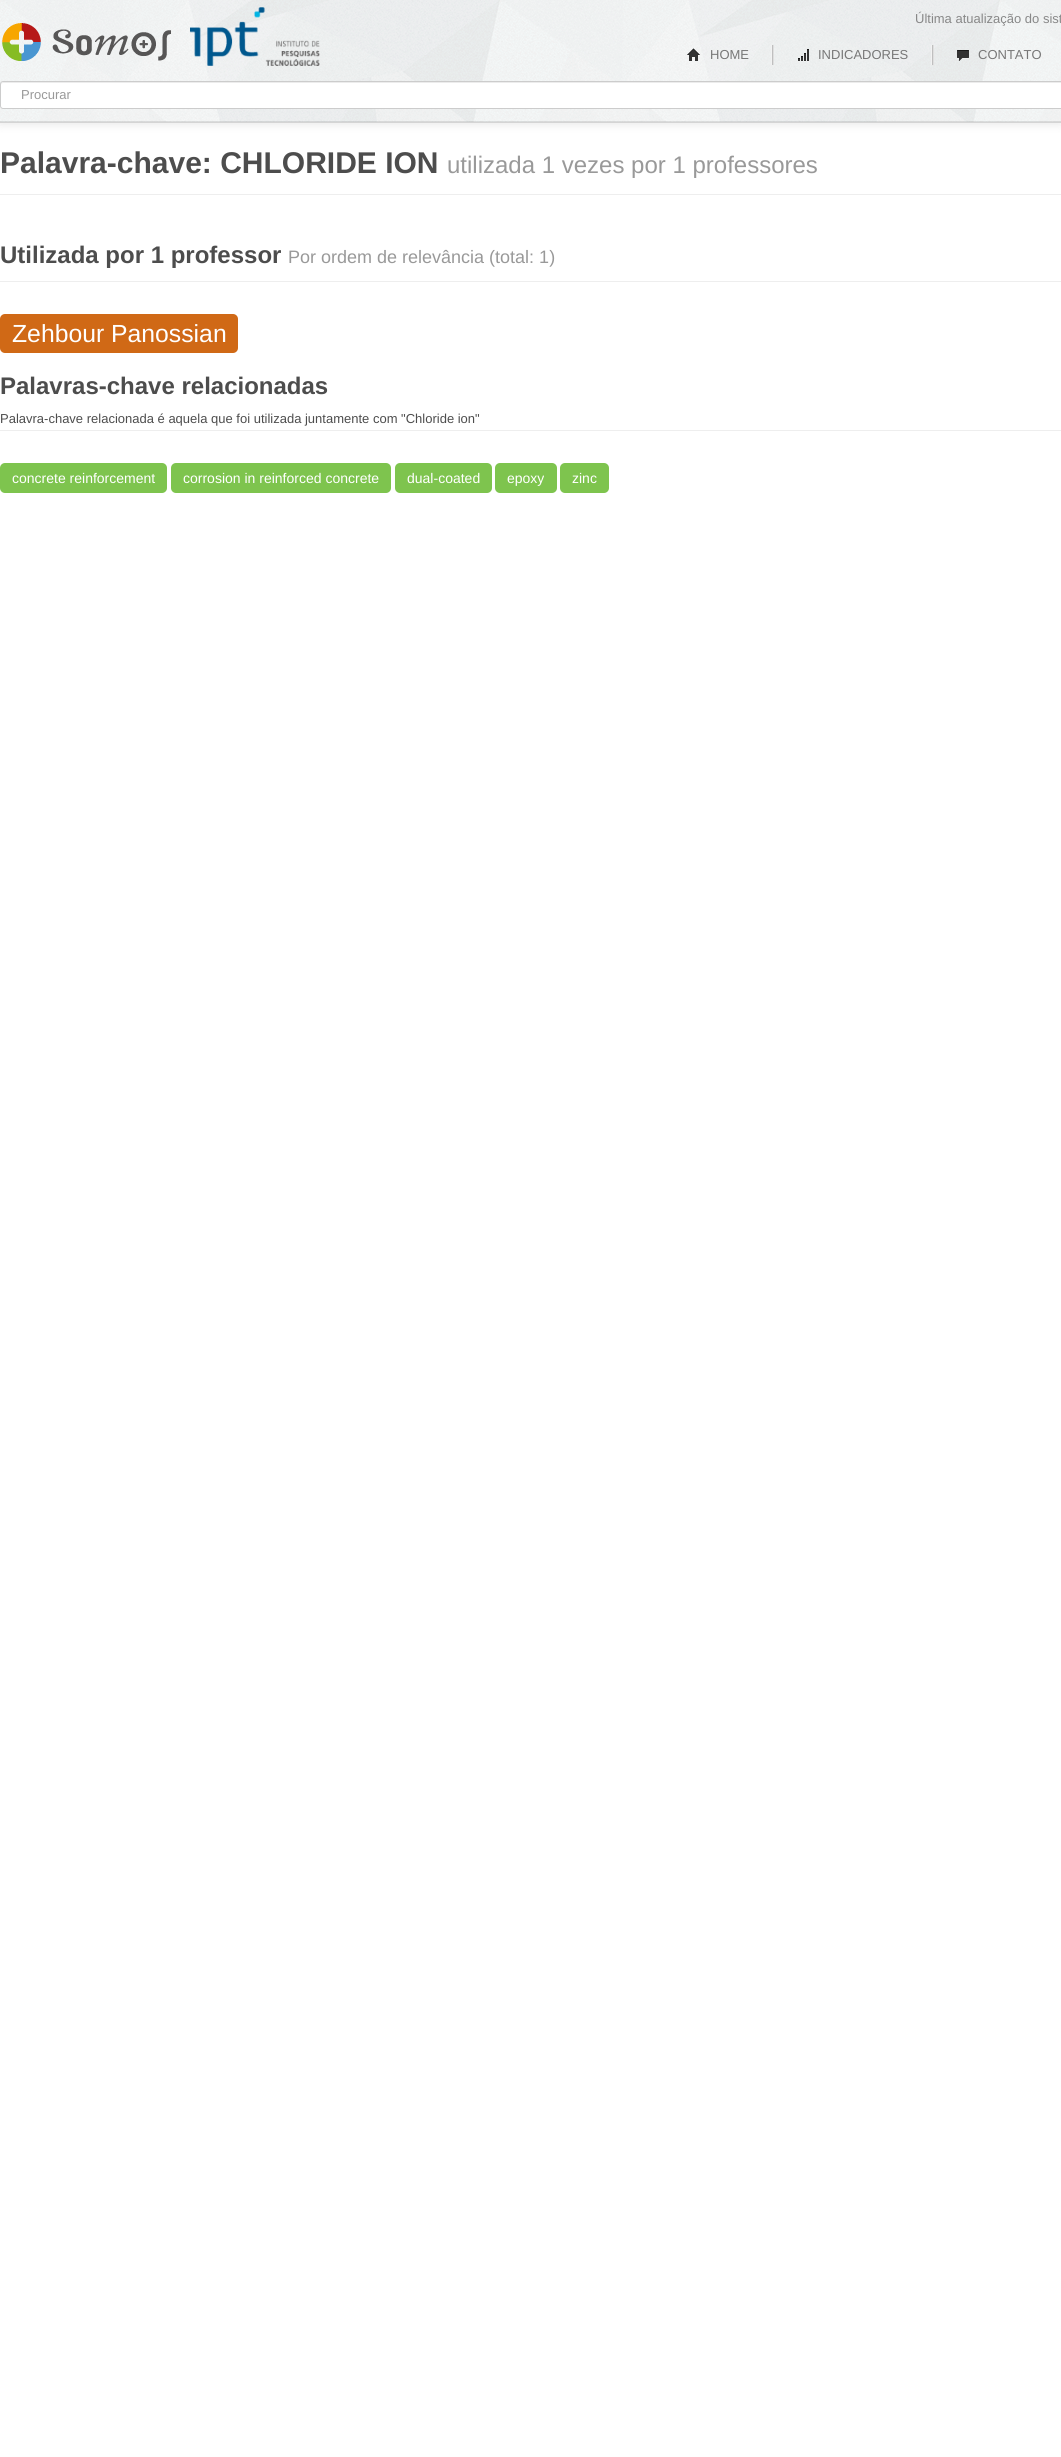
import math
import cairo

surface = cairo.ImageSurface(cairo.FORMAT_RGB24, 1061, 2457)
cr = cairo.Context(surface)
options = cairo.FontOptions()
options.set_hint_metrics(cairo.HINT_METRICS_OFF)
options.set_hint_style(cairo.HINT_STYLE_NONE)
cr.set_font_options(options)
cr.set_miter_limit(4)


def rgb(code):
    cr.set_source_rgb(*(v / 255 for v in bytes.fromhex(code[-6:])))


def rrect(x, y, w, h, r):
    cr.new_sub_path()
    for i, (u, v) in enumerate([(x + w - r, y + h - r), (x + r, y + h - r), (x + r, y + r), (x + w - r, y + r)]):
        cr.arc(u, v, r, i * math.pi / 2, (i + 1) * math.pi / 2)
    cr.close_path()


def soft_shadow(x, y, w, h, r, blur, alpha):
    cr.push_group_with_content(cairo.CONTENT_ALPHA)
    cr.set_operator(cairo.OPERATOR_SOURCE)
    for i in range(15, -16, -2):
        e = blur * i / 6
        if min(w, h) + 2 * e > 0:
            cr.set_source_rgba(0, 0, 0, alpha * math.erfc((i - 1) / 8.5) / 2)
            rrect(x - e, y - e, w + 2 * e, h + 2 * e, max(0, min(r + e + blur * .6, min(w, h) / 2 + e)))
            cr.fill()
    cr.mask(cr.pop_group())


def image(path, x, y, w, h):
    cr.save()
    cr.set_source_surface(cairo.ImageSurface.create_from_png(path), x, y)
    cr.rectangle(x, y, w, h)
    cr.fill()
    cr.restore()


rgb("#ffffff")
cr.paint()
rgb("#000000")
soft_shadow(0, 1, 1061, 123, 0, 5, 0.1)
image("img/1.png", 0, 0, 1061, 122)
cr.set_source_rgba(0, 0, 0, 0.1)
cr.rectangle(0, 121, 1061, 1)
cr.fill()
rgb("#d4d4d4")
cr.rectangle(0, 122, 1061, 1)
cr.fill()
image("img/2.png", 190, 7, 130, 59)
image("img/3.png", 2, 23, 169, 38)
image("img/4.png", 687, 48, 13, 13)
for x, y, w, h, color in [
    (772, 45, 1, 20, "#bfbfbf"),
    (773, 45, 1, 20, "#dfdfdf"),
    (771, 45, 1, 20, "#f2f2f2"),
]:
    rgb(color)
    cr.rectangle(x, y, w, h)
    cr.fill()
image("img/5.png", 798, 49, 11, 13)
for x, y, w, h, color in [
    (932, 45, 1, 20, "#bfbfbf"),
    (933, 45, 1, 20, "#dfdfdf"),
    (931, 45, 1, 20, "#f2f2f2"),
]:
    rgb(color)
    cr.rectangle(x, y, w, h)
    cr.fill()
image("img/6.png", 957, 50, 12, 12)
rgb("#ffffff")
rrect(0, 81, 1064, 28, 3)
cr.fill()
rgb("#ececec")
cr.new_path()
cr.move_to(3, 83)
cr.line_to(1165, 83)
cr.curve_to(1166, 83, 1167, 84, 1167, 85)
cr.line_to(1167, 83)
cr.line_to(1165, 82)
cr.line_to(3, 82)
cr.curve_to(2, 82, 1, 83, 1, 84)
cr.line_to(1, 85)
cr.curve_to(1, 84, 2, 83, 3, 83)
cr.close_path()
cr.fill()
rrect(0.5, 81.5, 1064, 27, 2.5)
rgb("#cccccc")
cr.set_line_width(1)
cr.stroke()
rgb("#eeeeee")
cr.rectangle(0, 194, 1061, 1)
cr.fill()
cr.rectangle(0, 281, 1061, 1)
cr.fill()
rgb("#d06916")
rrect(0, 314, 238, 39, 5)
cr.fill()
rgb("#eeeeee")
cr.rectangle(0, 430, 1061, 1)
cr.fill()
rgb("#7ec44e")
rrect(0, 463, 167, 30, 5)
cr.fill()
rrect(171, 463, 220, 30, 5)
cr.fill()
rrect(395, 463, 97, 30, 5)
cr.fill()
rrect(495, 463, 62, 30, 5)
cr.fill()
rrect(560, 463, 49, 30, 5)
cr.fill()
cr.select_font_face("Liberation Sans")
cr.set_font_size(13)
rgb("#888888")
cr.move_to(915, 23)
cr.show_text("Última atualização do sist")
rgb("#777777")
for x, y, s in [
    (710, 59, "HOME"),
    (818, 59, "INDICADORES"),
    (978, 59, "CONTATO"),
]:
    cr.move_to(x, y)
    cr.show_text(s)
rgb("#999999")
cr.move_to(21, 99)
cr.show_text("Procurar")
cr.select_font_face("Liberation Sans", cairo.FONT_SLANT_NORMAL, cairo.FONT_WEIGHT_BOLD)
cr.set_font_size(30)
rgb("#4d4d4d")
cr.move_to(0, 173)
cr.show_text("Palavra-chave: CHLORIDE ION")
cr.select_font_face("Liberation Sans")
cr.set_font_size(24)
rgb("#999999")
cr.move_to(447, 173)
cr.show_text("utilizada 1 vezes por 1 professores")
cr.select_font_face("Liberation Sans", cairo.FONT_SLANT_NORMAL, cairo.FONT_WEIGHT_BOLD)
rgb("#4d4d4d")
cr.move_to(0, 263)
cr.show_text("Utilizada por 1 professor")
cr.select_font_face("Liberation Sans")
cr.set_font_size(18)
rgb("#999999")
cr.move_to(288, 263)
cr.show_text("Por ordem de relevância (total: 1)")
cr.set_font_size(24.75)
rgb("#ffffff")
cr.move_to(12, 342)
cr.show_text("Zehbour Panossian")
cr.select_font_face("Liberation Sans", cairo.FONT_SLANT_NORMAL, cairo.FONT_WEIGHT_BOLD)
cr.set_font_size(24)
rgb("#4d4d4d")
cr.move_to(0, 394)
cr.show_text("Palavras-chave relacionadas")
cr.select_font_face("Liberation Sans")
cr.set_font_size(13)
cr.move_to(0, 423)
cr.show_text("Palavra-chave relacionada é aquela que foi utilizada juntamente com \"Chloride ion\"")
cr.set_font_size(14)
rgb("#ffffff")
for x, y, s in [
    (12, 483, "concrete reinforcement"),
    (183, 483, "corrosion in reinforced concrete"),
    (407, 483, "dual-coated"),
    (507, 483, "epoxy"),
    (572, 483, "zinc"),
]:
    cr.move_to(x, y)
    cr.show_text(s)
surface.write_to_png("page.png")
